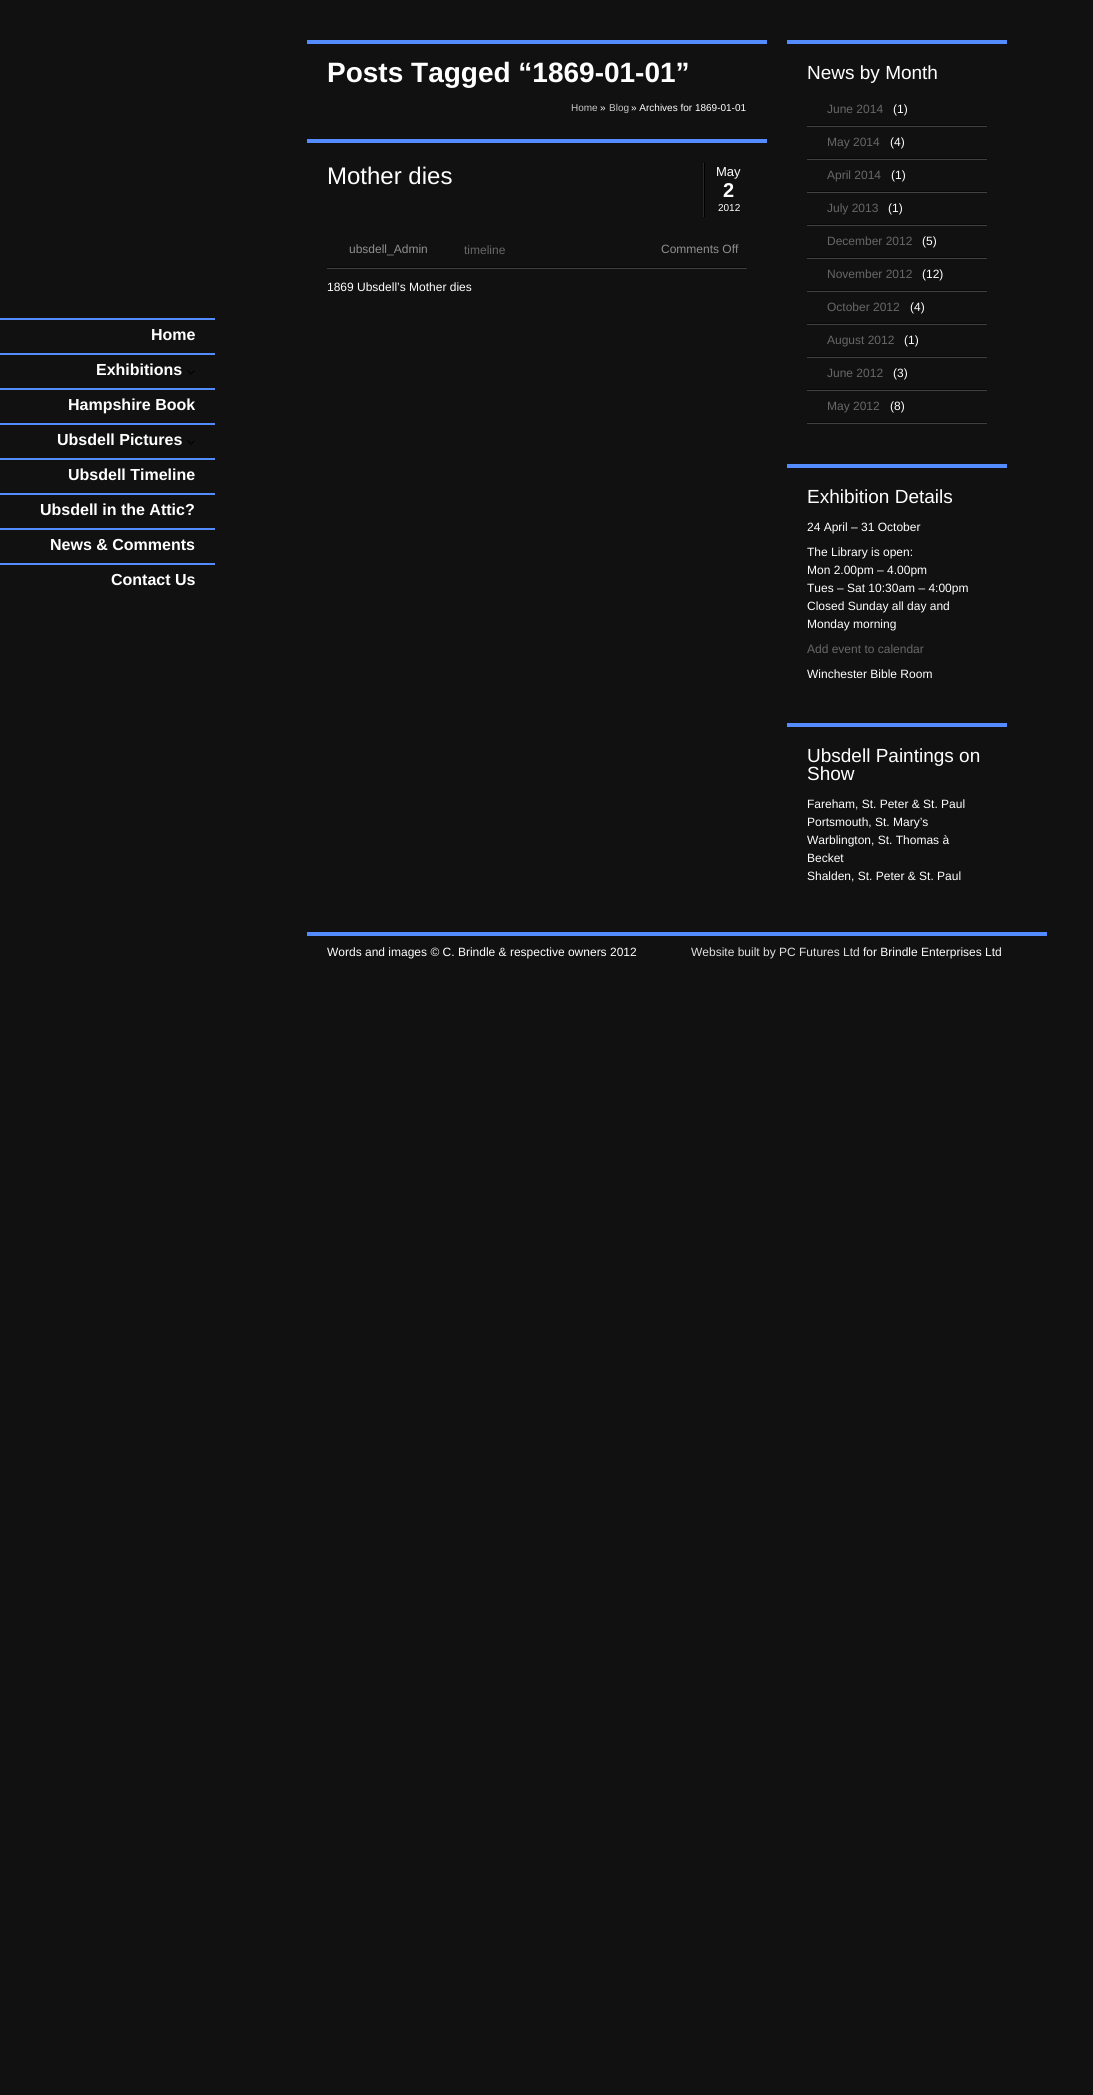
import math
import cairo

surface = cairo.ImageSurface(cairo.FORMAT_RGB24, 1093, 2095)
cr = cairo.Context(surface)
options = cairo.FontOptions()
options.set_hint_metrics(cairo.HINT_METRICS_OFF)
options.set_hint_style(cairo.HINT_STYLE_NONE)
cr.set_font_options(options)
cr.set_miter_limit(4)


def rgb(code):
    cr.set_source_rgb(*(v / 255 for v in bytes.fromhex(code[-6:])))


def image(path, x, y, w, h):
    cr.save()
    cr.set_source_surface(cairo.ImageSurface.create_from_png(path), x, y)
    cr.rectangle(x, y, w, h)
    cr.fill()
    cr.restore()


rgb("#111111")
cr.paint()
rgb("#528cff")
cr.rectangle(0, 318, 215, 2)
cr.fill()
cr.rectangle(0, 353, 215, 2)
cr.fill()
image("img/1.png", 187, 370, 8, 5)
cr.rectangle(0, 388, 215, 2)
cr.fill()
cr.rectangle(0, 423, 215, 2)
cr.fill()
image("img/1.png", 187, 440, 8, 5)
for x, y, w, h, color in [
    (0, 458, 215, 2, "#528cff"),
    (0, 493, 215, 2, "#528cff"),
    (0, 528, 215, 2, "#528cff"),
    (0, 563, 215, 2, "#528cff"),
    (307, 40, 460, 4, "#528cff"),
    (307, 139, 460, 4, "#528cff"),
    (703, 163, 1, 54, "#292929"),
    (704, 163, 1, 54, "#000000"),
    (327, 268, 420, 1, "#414141"),
    (327, 267, 420, 1, "#090909"),
    (787, 40, 220, 4, "#528cff"),
    (807, 126, 180, 1, "#414141"),
    (807, 125, 180, 1, "#090909"),
    (807, 159, 180, 1, "#414141"),
    (807, 158, 180, 1, "#090909"),
    (807, 192, 180, 1, "#414141"),
    (807, 191, 180, 1, "#090909"),
    (807, 225, 180, 1, "#414141"),
    (807, 224, 180, 1, "#090909"),
    (807, 258, 180, 1, "#414141"),
    (807, 257, 180, 1, "#090909"),
    (807, 291, 180, 1, "#414141"),
    (807, 290, 180, 1, "#090909"),
    (807, 324, 180, 1, "#414141"),
    (807, 323, 180, 1, "#090909"),
    (807, 357, 180, 1, "#414141"),
    (807, 356, 180, 1, "#090909"),
    (807, 390, 180, 1, "#414141"),
    (807, 389, 180, 1, "#090909"),
    (807, 423, 180, 1, "#414141"),
    (807, 422, 180, 1, "#090909"),
    (787, 464, 220, 4, "#528cff"),
    (787, 723, 220, 4, "#528cff"),
    (307, 932, 740, 4, "#528cff"),
]:
    rgb(color)
    cr.rectangle(x, y, w, h)
    cr.fill()
cr.select_font_face("Liberation Sans", cairo.FONT_SLANT_NORMAL, cairo.FONT_WEIGHT_BOLD)
cr.set_font_size(16)
rgb("#ffffff")
for x, y, s in [
    (151, 340, "Home"),
    (96, 375, "Exhibitions"),
    (68, 410, "Hampshire Book"),
    (57, 445, "Ubsdell Pictures"),
    (68, 480, "Ubsdell Timeline"),
    (40, 515, "Ubsdell in the Attic?"),
    (50, 550, "News & Comments"),
    (111, 585, "Contact Us"),
]:
    cr.move_to(x, y)
    cr.show_text(s)
cr.set_font_size(28)
cr.move_to(327, 82)
cr.show_text("Posts Tagged “1869-01-01”")
cr.select_font_face("Liberation Sans")
cr.set_font_size(10)
rgb("#c6c6c6")
cr.move_to(571, 111)
cr.show_text("Home")
rgb("#ffffff")
cr.move_to(600, 111)
cr.show_text("»")
rgb("#c6c6c6")
cr.move_to(609, 111)
cr.show_text("Blog")
rgb("#ffffff")
cr.move_to(631, 111)
cr.show_text("» Archives for 1869-01-01")
cr.set_font_size(24)
cr.move_to(327, 184)
cr.show_text("Mother dies")
cr.set_font_size(13)
cr.move_to(716, 176)
cr.show_text("May")
cr.select_font_face("Liberation Sans", cairo.FONT_SLANT_NORMAL, cairo.FONT_WEIGHT_BOLD)
cr.set_font_size(20)
cr.move_to(723, 197)
cr.show_text("2")
cr.select_font_face("Liberation Sans")
cr.set_font_size(10)
cr.move_to(718, 211)
cr.show_text("2012")
cr.set_font_size(12)
rgb("#8f8f8f")
cr.move_to(349, 253)
cr.show_text("ubsdell_Admin")
rgb("#676767")
cr.move_to(464, 254)
cr.show_text("timeline")
rgb("#8f8f8f")
cr.move_to(661, 253)
cr.show_text("Comments Off")
rgb("#ffffff")
cr.move_to(327, 291)
cr.show_text("1869 Ubsdell’s Mother dies")
cr.set_font_size(19)
cr.move_to(807, 79)
cr.show_text("News by Month")
cr.set_font_size(12)
rgb("#676767")
cr.move_to(827, 113)
cr.show_text("June 2014")
rgb("#ffffff")
cr.move_to(893, 113)
cr.show_text("(1)")
rgb("#676767")
cr.move_to(827, 146)
cr.show_text("May 2014")
rgb("#ffffff")
cr.move_to(890, 146)
cr.show_text("(4)")
rgb("#676767")
cr.move_to(827, 179)
cr.show_text("April 2014")
rgb("#ffffff")
cr.move_to(891, 179)
cr.show_text("(1)")
rgb("#676767")
cr.move_to(827, 212)
cr.show_text("July 2013")
rgb("#ffffff")
cr.move_to(888, 212)
cr.show_text("(1)")
rgb("#676767")
cr.move_to(827, 245)
cr.show_text("December 2012")
rgb("#ffffff")
cr.move_to(922, 245)
cr.show_text("(5)")
rgb("#676767")
cr.move_to(827, 278)
cr.show_text("November 2012")
rgb("#ffffff")
cr.move_to(922, 278)
cr.show_text("(12)")
rgb("#676767")
cr.move_to(827, 311)
cr.show_text("October 2012")
rgb("#ffffff")
cr.move_to(910, 311)
cr.show_text("(4)")
rgb("#676767")
cr.move_to(827, 344)
cr.show_text("August 2012")
rgb("#ffffff")
cr.move_to(904, 344)
cr.show_text("(1)")
rgb("#676767")
cr.move_to(827, 377)
cr.show_text("June 2012")
rgb("#ffffff")
cr.move_to(893, 377)
cr.show_text("(3)")
rgb("#676767")
cr.move_to(827, 410)
cr.show_text("May 2012")
rgb("#ffffff")
cr.move_to(890, 410)
cr.show_text("(8)")
cr.set_font_size(19)
cr.move_to(807, 503)
cr.show_text("Exhibition Details")
cr.set_font_size(12)
for x, y, s in [
    (807, 531, "24 April – 31 October"),
    (807, 556, "The Library is open:"),
    (807, 574, "Mon 2.00pm – 4.00pm"),
    (807, 592, "Tues – Sat 10:30am – 4:00pm"),
    (807, 610, "Closed Sunday all day and"),
    (807, 628, "Monday morning"),
]:
    cr.move_to(x, y)
    cr.show_text(s)
rgb("#676767")
cr.move_to(807, 653)
cr.show_text("Add event to calendar")
rgb("#ffffff")
cr.move_to(807, 678)
cr.show_text("Winchester Bible Room")
cr.set_font_size(19)
cr.move_to(807, 762)
cr.show_text("Ubsdell Paintings on")
cr.move_to(807, 780)
cr.show_text("Show")
cr.set_font_size(12)
for x, y, s in [
    (807, 808, "Fareham, St. Peter & St. Paul"),
    (807, 826, "Portsmouth, St. Mary’s"),
    (807, 844, "Warblington, St. Thomas à"),
    (807, 862, "Becket"),
    (807, 880, "Shalden, St. Peter & St. Paul"),
    (327, 956, "Words and images © C. Brindle & respective owners 2012"),
]:
    cr.move_to(x, y)
    cr.show_text(s)
rgb("#e0e0e0")
cr.move_to(691, 956)
cr.show_text("Website built by PC Futures Ltd")
rgb("#ffffff")
cr.move_to(863, 956)
cr.show_text("for Brindle Enterprises Ltd")
surface.write_to_png("page.png")
